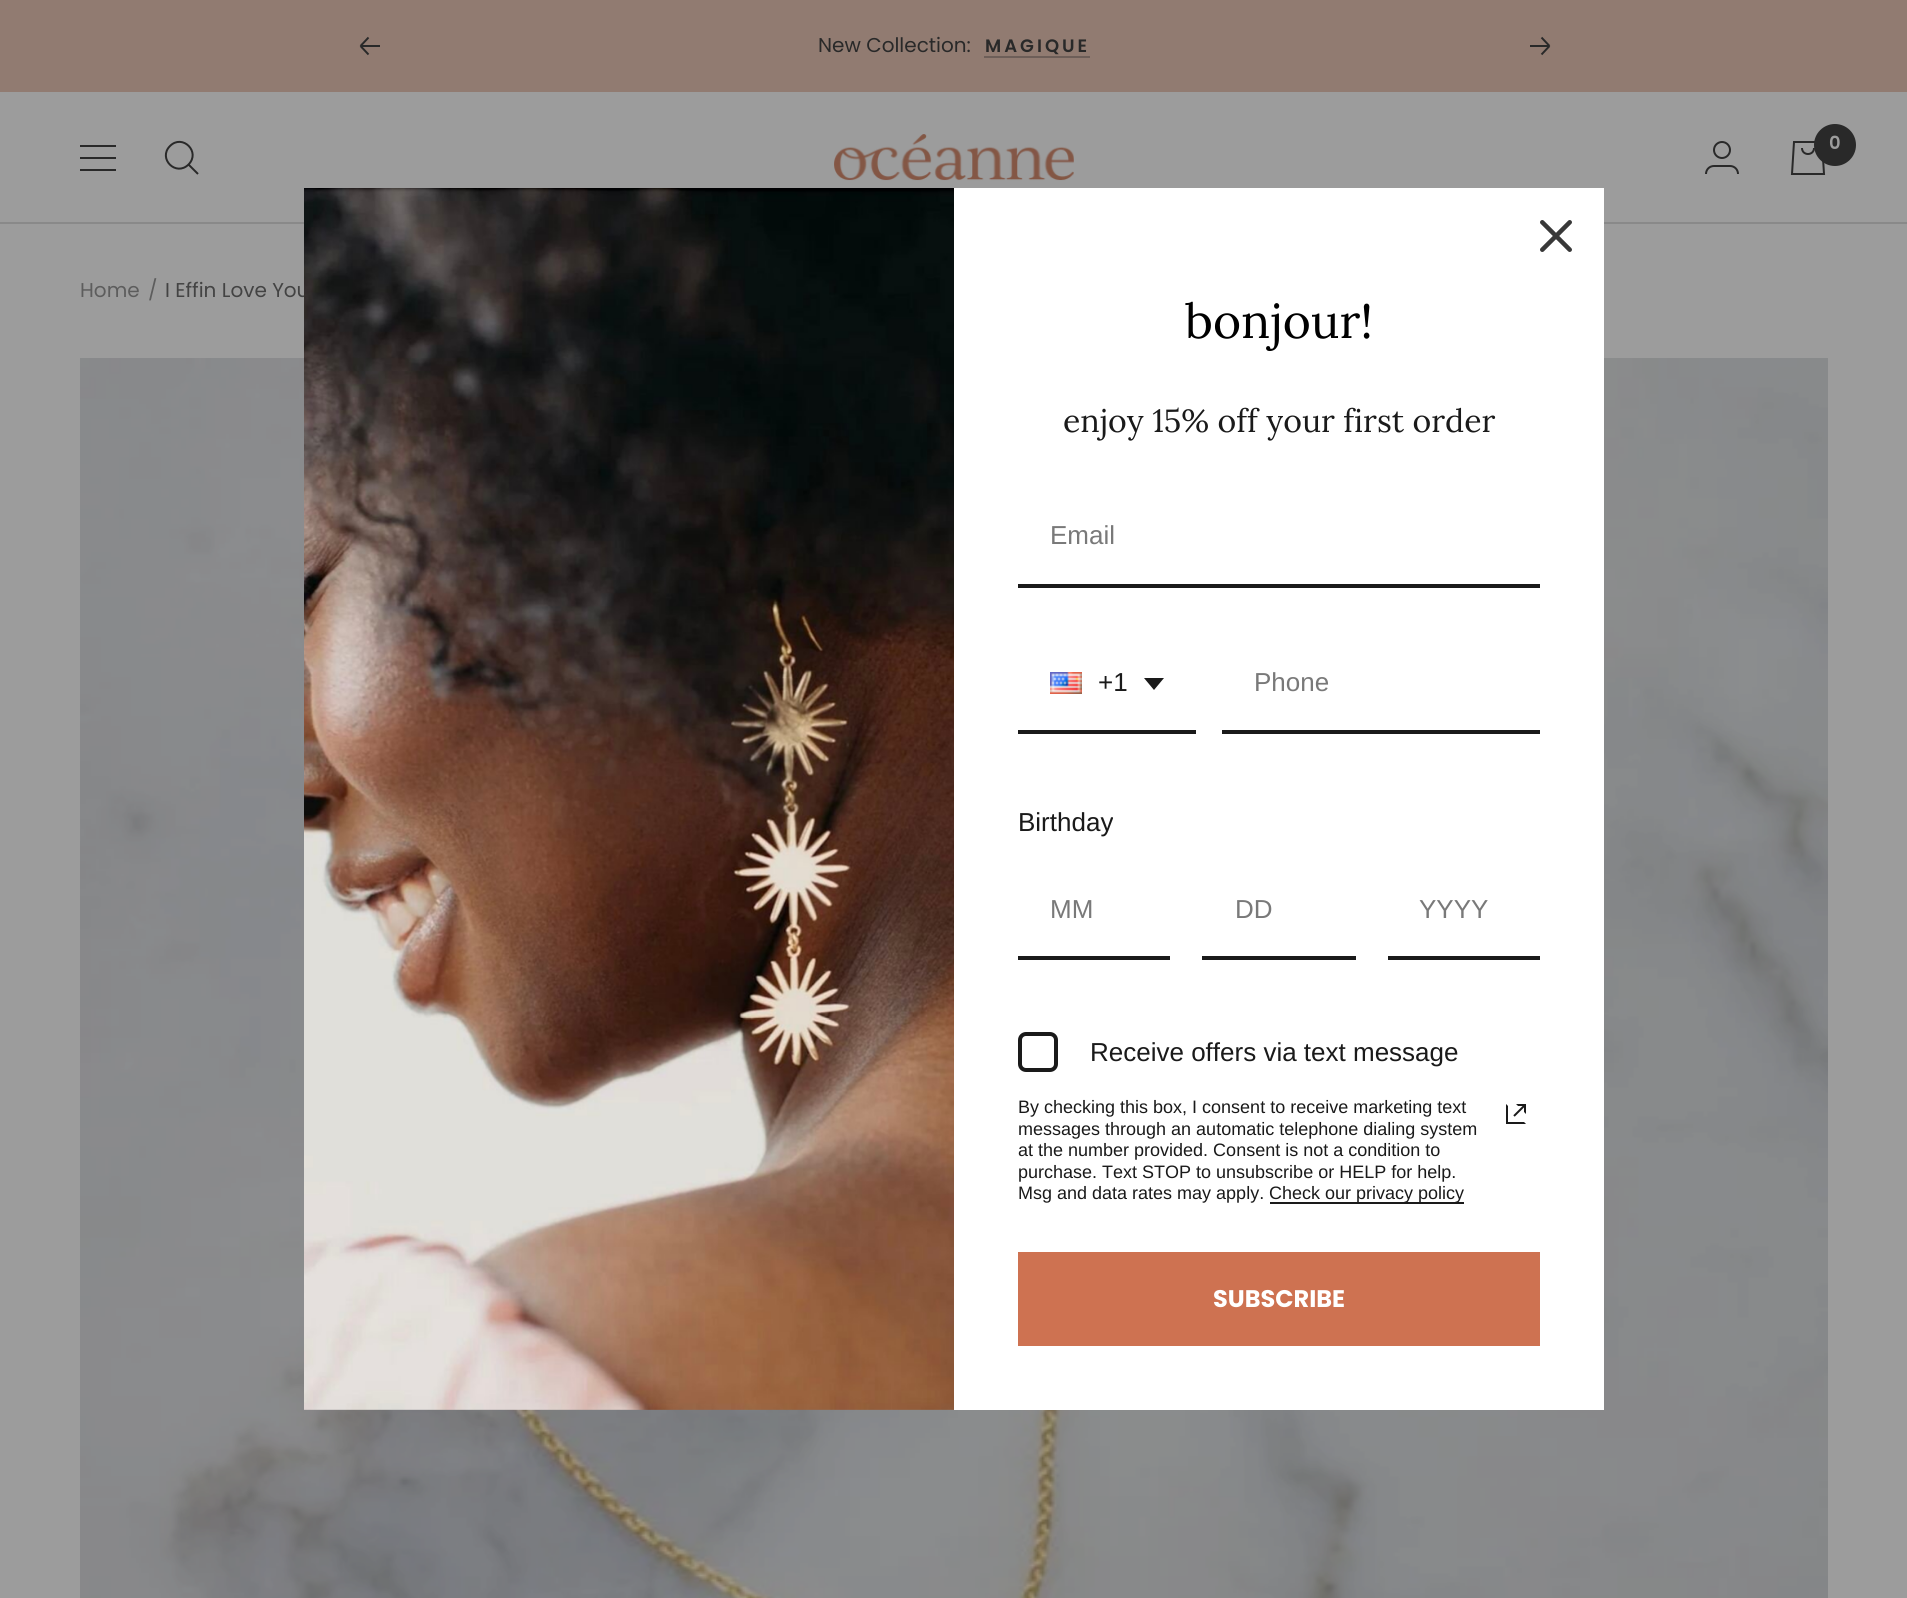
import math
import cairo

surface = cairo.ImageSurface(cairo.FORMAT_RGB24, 1907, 1598)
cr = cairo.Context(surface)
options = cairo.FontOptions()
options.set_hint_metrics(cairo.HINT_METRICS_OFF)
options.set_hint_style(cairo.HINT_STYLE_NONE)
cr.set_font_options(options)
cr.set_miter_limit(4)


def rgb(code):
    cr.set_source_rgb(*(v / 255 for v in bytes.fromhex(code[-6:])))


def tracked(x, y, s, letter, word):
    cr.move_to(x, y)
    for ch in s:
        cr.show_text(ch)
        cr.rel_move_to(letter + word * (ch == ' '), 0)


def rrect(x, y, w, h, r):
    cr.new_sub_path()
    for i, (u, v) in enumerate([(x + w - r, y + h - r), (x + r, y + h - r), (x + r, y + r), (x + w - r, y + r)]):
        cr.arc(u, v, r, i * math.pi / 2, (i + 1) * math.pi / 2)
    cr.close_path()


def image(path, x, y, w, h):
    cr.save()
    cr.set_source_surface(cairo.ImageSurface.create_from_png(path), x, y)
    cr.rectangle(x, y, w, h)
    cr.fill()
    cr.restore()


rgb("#9c9c9c")
cr.paint()
rgb("#917b71")
cr.rectangle(0, 0, 1907, 92)
cr.fill()
cr.new_path()
cr.move_to(380, 46)
cr.line_to(360.5, 46)
cr.move_to(360.5, 46)
cr.line_to(368.5, 54.5)
cr.move_to(360.5, 46)
cr.line_to(368.5, 37.5)
rgb("#292929")
cr.stroke()
rgb("#6d5e58")
cr.rectangle(984, 56, 106, 2)
cr.fill()
cr.new_path()
cr.move_to(1530, 46)
cr.line_to(1549.5, 46)
cr.move_to(1549.5, 46)
cr.line_to(1541.5, 54.5)
cr.move_to(1549.5, 46)
cr.line_to(1541.5, 37.5)
rgb("#292929")
cr.stroke()
rgb("#898989")
cr.rectangle(0, 222, 1907, 2)
cr.fill()
cr.new_path()
cr.move_to(80, 146)
cr.line_to(116, 146)
cr.move_to(80, 170)
cr.line_to(116, 170)
cr.close_path()
cr.move_to(80, 158)
cr.line_to(116, 158)
cr.close_path()
rgb("#292929")
cr.stroke()
cr.new_path()
cr.move_to(188.5, 164.5)
cr.curve_to(201, 152, 182.5, 133.5, 170, 146)
cr.curve_to(157.5, 158.5, 176, 177, 188.5, 164.5)
cr.close_path()
cr.move_to(188.5, 164.5)
cr.line_to(198, 174)
cr.stroke()
image("img/1.png", 834, 134, 240, 47)
cr.arc(1722, 150, 8, 0, 2 * math.pi)
cr.stroke()
cr.new_path()
cr.move_to(1706, 174)
cr.curve_to(1706, 169.5, 1709.5, 166, 1714, 166)
cr.line_to(1730, 166)
cr.curve_to(1734.5, 166, 1738, 169.5, 1738, 174)
cr.stroke()
cr.new_path()
cr.move_to(1794, 142)
cr.line_to(1822, 142)
cr.line_to(1824, 174)
cr.line_to(1792, 174)
cr.close_path()
cr.move_to(1802, 148)
cr.curve_to(1802, 156, 1814, 156, 1814, 148)
cr.stroke()
cr.arc(1835, 145, 21, 0, 2 * math.pi)
cr.fill()
image("img/2.png", 80, 358, 1748, 1240)
rgb("#ffffff")
cr.rectangle(954, 188, 650, 1222)
cr.fill()
image("img/3.png", 1540, 220, 32, 32)
rgb("#1a1a1a")
cr.rectangle(1018, 584, 522, 4)
cr.fill()
cr.rectangle(1018, 730, 178, 4)
cr.fill()
image("img/5.png", 1050, 672, 32, 22)
cr.set_fill_rule(cairo.FILL_RULE_EVEN_ODD)
cr.new_path()
cr.move_to(1144, 678)
cr.line_to(1164, 678)
cr.line_to(1154, 690)
cr.close_path()
cr.fill()
for x, y, w, h, color in [
    (1222, 730, 318, 4, "#1a1a1a"),
    (1018, 956, 152, 4, "#1a1a1a"),
    (1202, 956, 154, 4, "#1a1a1a"),
    (1388, 956, 152, 4, "#1a1a1a"),
]:
    rgb(color)
    cr.rectangle(x, y, w, h)
    cr.fill()
rrect(1020, 1034, 36, 36, 6)
cr.set_line_width(4)
cr.stroke()
cr.rectangle(1270, 1202, 194, 2)
cr.fill()
image("img/6.png", 1506, 1104, 20, 20)
rgb("#ce7251")
cr.rectangle(1018, 1252, 522, 94)
cr.fill()
cr.select_font_face("Poppins")
cr.set_font_size(20)
rgb("#292929")
cr.move_to(818, 52)
cr.show_text("New Collection:")
cr.select_font_face("Poppins SemiBold")
cr.set_font_size(18)
tracked(985, 52, "MAGIQUE", 3, 0)
rgb("#9c9c9c")
cr.move_to(1829, 149)
cr.show_text("0")
cr.select_font_face("Poppins")
cr.set_font_size(20)
rgb("#5d5d5d")
cr.move_to(80, 297)
cr.show_text("Home")
cr.move_to(148, 297)
cr.show_text("/")
rgb("#434343")
cr.move_to(165, 297)
cr.show_text("I Effin Love You")
image("img/4.png", 304, 188, 650, 1222)
cr.select_font_face("Lora")
cr.set_font_size(48)
rgb("#000000")
cr.move_to(1185, 338)
cr.show_text("bonjour!")
cr.set_font_size(32)
rgb("#1a1a1a")
cr.move_to(1063, 432)
cr.show_text("enjoy 15% off your first order")
cr.select_font_face("Liberation Sans")
cr.set_font_size(26)
rgb("#797979")
cr.move_to(1050, 544)
cr.show_text("Email")
rgb("#1a1a1a")
cr.move_to(1098, 691)
cr.show_text("+1")
rgb("#797979")
cr.move_to(1254, 691)
cr.show_text("Phone")
rgb("#1a1a1a")
cr.move_to(1018, 831)
cr.show_text("Birthday")
rgb("#797979")
for x, y, s in [
    (1050, 918, "MM"),
    (1235, 918, "DD"),
    (1419, 918, "YYYY"),
]:
    cr.move_to(x, y)
    cr.show_text(s)
rgb("#1a1a1a")
cr.move_to(1090, 1061)
cr.show_text("Receive offers via text message")
cr.set_font_size(18)
for x, y, s in [
    (1018, 1113, "By checking this box, I consent to receive marketing text"),
    (1018, 1135, "messages through an automatic telephone dialing system"),
    (1018, 1156, "at the number provided. Consent is not a condition to"),
    (1018, 1178, "purchase. Text STOP to unsubscribe or HELP for help."),
    (1018, 1199, "Msg and data rates may apply."),
    (1269, 1199, "Check our privacy policy"),
]:
    cr.move_to(x, y)
    cr.show_text(s)
cr.select_font_face("Poppins", cairo.FONT_SLANT_NORMAL, cairo.FONT_WEIGHT_BOLD)
cr.set_font_size(24)
rgb("#ffffff")
cr.move_to(1213, 1307)
cr.show_text("SUBSCRIBE")
surface.write_to_png("page.png")
